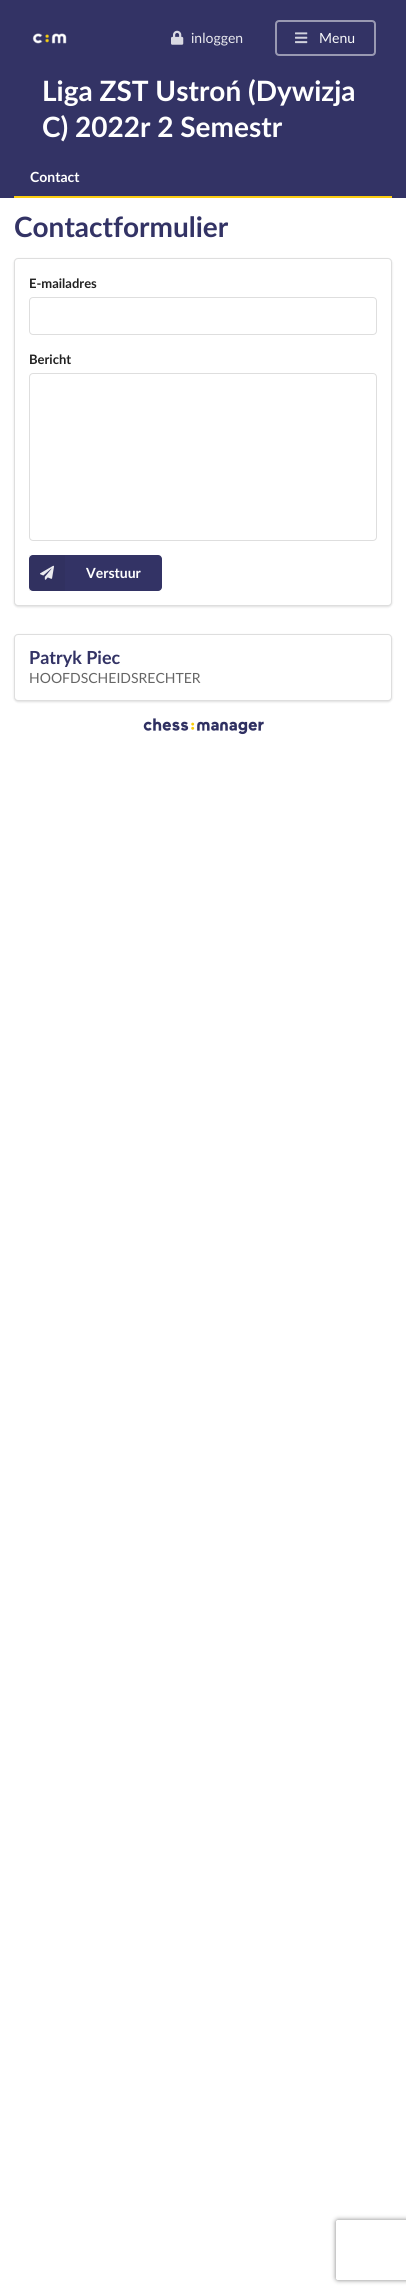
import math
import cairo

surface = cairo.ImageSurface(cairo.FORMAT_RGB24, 406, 2294)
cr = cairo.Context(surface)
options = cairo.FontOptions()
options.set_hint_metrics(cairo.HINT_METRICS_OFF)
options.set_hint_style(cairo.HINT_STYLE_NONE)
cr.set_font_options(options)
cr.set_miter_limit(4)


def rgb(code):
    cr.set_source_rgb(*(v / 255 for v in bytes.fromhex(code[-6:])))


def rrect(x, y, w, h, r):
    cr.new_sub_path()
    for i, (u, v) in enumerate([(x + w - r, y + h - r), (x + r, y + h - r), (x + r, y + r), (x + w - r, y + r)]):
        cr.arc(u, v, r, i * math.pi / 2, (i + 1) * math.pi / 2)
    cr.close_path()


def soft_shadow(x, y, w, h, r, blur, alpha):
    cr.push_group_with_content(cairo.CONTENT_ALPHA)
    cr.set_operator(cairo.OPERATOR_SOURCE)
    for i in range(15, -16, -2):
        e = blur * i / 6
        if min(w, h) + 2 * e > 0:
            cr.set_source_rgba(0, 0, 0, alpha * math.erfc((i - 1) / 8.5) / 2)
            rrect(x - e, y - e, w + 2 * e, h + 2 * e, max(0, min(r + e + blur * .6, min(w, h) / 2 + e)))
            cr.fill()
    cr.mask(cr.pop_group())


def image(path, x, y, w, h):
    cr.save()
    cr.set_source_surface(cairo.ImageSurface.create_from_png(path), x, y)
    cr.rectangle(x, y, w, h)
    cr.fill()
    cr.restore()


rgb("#ffffff")
cr.paint()
rgb("#333365")
cr.rectangle(0, 0, 406, 198)
cr.fill()
image("img/1.png", 32, 33, 35, 11)
image("img/2.png", 171, 30, 13, 15)
rrect(276, 21, 99, 34, 3)
rgb("#9999b2")
cr.stroke()
image("img/3.png", 295, 32, 13, 12)
rgb("#fcce11")
cr.rectangle(14, 196, 378, 2)
cr.fill()
rgb("#222426")
soft_shadow(14, 259, 378, 348, 4, 1, 0.15)
rgb("#ffffff")
rrect(14, 258, 378, 348, 4)
cr.fill()
rrect(14.5, 258.5, 377, 347, 3.5)
cr.set_source_rgba(0.133, 0.141, 0.149, 0.15)
cr.set_line_width(1)
cr.stroke()
rrect(29.5, 297.5, 347, 37, 3.5)
rgb("#dedede")
cr.stroke()
rrect(29.5, 373.5, 347, 167, 3.5)
cr.stroke()
rgb("#333365")
rrect(29, 555, 133, 36, 4)
cr.fill()
cr.set_source_rgba(0, 0, 0, 0.05)
cr.rectangle(29, 555, 36, 36)
cr.fill()
image("img/4.png", 40, 565, 14, 15)
cr.save()
cr.set_fill_rule(cairo.FILL_RULE_EVEN_ODD)
cr.new_path()
cr.move_to(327, 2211)
cr.line_to(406, 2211)
cr.line_to(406, 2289)
cr.line_to(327, 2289)
cr.close_path()
cr.move_to(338, 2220)
cr.line_to(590, 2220)
cr.curve_to(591, 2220, 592, 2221, 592, 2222)
cr.line_to(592, 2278)
cr.curve_to(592, 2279, 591, 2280, 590, 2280)
cr.line_to(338, 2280)
cr.curve_to(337, 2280, 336, 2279, 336, 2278)
cr.line_to(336, 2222)
cr.curve_to(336, 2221, 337, 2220, 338, 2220)
cr.close_path()
cr.clip()
rgb("#808080")
soft_shadow(336, 2220, 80, 60, 2, 2.5, 1)
cr.restore()
rgb("#222426")
soft_shadow(14, 635, 378, 67, 4, 1, 0.15)
rgb("#ffffff")
rrect(14, 634, 378, 67, 4)
cr.fill()
rrect(14.5, 634.5, 377, 66, 3.5)
cr.set_source_rgba(0.133, 0.141, 0.149, 0.15)
cr.stroke()
image("img/5.png", 143, 718, 121, 17)
cr.select_font_face("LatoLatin")
cr.set_font_size(14)
rgb("#ebebf0")
cr.move_to(191, 43)
cr.show_text("inloggen")
rgb("#f9fafb")
cr.move_to(319, 43)
cr.show_text("Menu")
cr.select_font_face("LatoLatin", cairo.FONT_SLANT_NORMAL, cairo.FONT_WEIGHT_BOLD)
cr.set_font_size(28)
rgb("#ffffff")
cr.move_to(42, 101)
cr.show_text("Liga ZST Ustroń (Dywizja")
cr.move_to(42, 137)
cr.show_text("C) 2022r 2 Semestr")
cr.set_font_size(14)
cr.move_to(30, 182)
cr.show_text("Contact")
cr.set_font_size(28)
rgb("#333365")
cr.move_to(14, 237)
cr.show_text("Contactformulier")
cr.set_font_size(13)
rgb("#212121")
cr.move_to(29, 288)
cr.show_text("E-mailadres")
cr.move_to(29, 364)
cr.show_text("Bericht")
cr.set_font_size(14)
rgb("#ffffff")
cr.move_to(86, 578)
cr.show_text("Verstuur")
cr.set_font_size(18)
rgb("#333365")
cr.move_to(29, 664)
cr.show_text("Patryk Piec")
cr.select_font_face("LatoLatin")
cr.set_font_size(14)
rgb("#666666")
cr.move_to(29, 683)
cr.show_text("HOOFDSCHEIDSRECHTER")
surface.write_to_png("page.png")
